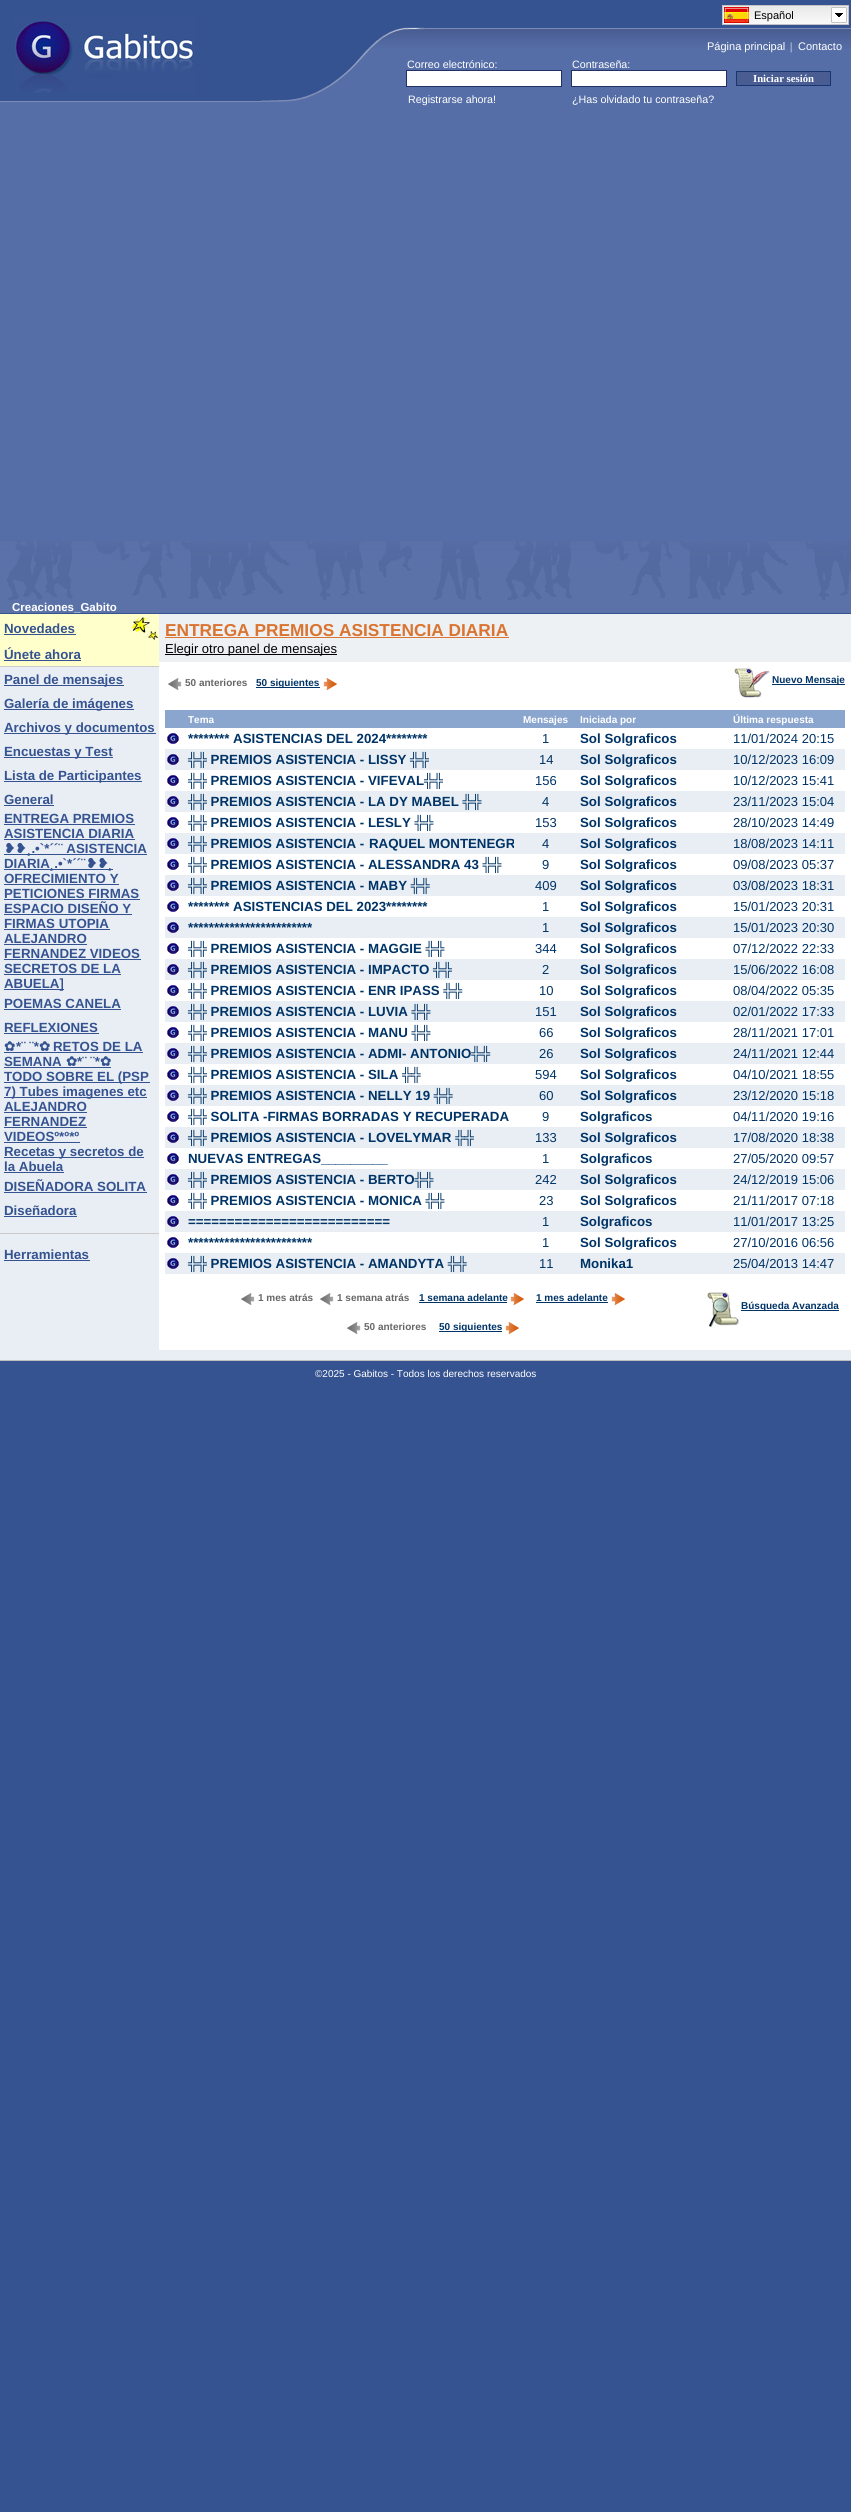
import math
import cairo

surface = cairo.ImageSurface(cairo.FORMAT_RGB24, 851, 2512)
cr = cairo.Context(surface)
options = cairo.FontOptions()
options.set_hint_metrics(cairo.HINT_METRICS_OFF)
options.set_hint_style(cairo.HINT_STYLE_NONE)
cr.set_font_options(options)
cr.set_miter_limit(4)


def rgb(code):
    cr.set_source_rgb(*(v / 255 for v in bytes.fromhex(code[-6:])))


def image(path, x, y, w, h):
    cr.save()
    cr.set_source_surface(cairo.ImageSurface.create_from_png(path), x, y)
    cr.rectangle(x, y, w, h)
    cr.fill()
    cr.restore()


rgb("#365391")
cr.paint()
image("img/1.png", 14, 15, 181, 78)
image("img/2.png", 260, 27, 591, 87)
image("img/3.png", 723, 6, 125, 18)
cr.rectangle(722.5, 5.5, 126, 19)
rgb("#c3c3c3")
cr.set_line_width(1)
cr.stroke()
image("img/4.png", 724, 7, 25, 16)
image("img/5.png", 831, 7, 16, 16)
rgb("#ffffff")
cr.rectangle(406.5, 70.5, 155, 16)
cr.fill_preserve()
rgb("#233065")
cr.stroke()
rgb("#ffffff")
cr.rectangle(571.5, 70.5, 155, 16)
cr.fill_preserve()
rgb("#233065")
cr.stroke()
rgb("#495d93")
cr.rectangle(736.5, 71.5, 94, 14)
cr.fill_preserve()
rgb("#183770")
cr.stroke()
for x, y, w, h, color in [
    (0, 102, 260, 12, "#566ea7"),
    (0, 101, 260, 1, "#7c8cb4"),
    (0, 114, 851, 427, "#566ea7"),
]:
    rgb(color)
    cr.rectangle(x, y, w, h)
    cr.fill()
image("img/6.png", 0, 541, 851, 60)
for x, y, w, h, color in [
    (0, 601, 851, 12, "#5b72a9"),
    (159, 662, 692, 688, "#ffffff"),
    (0, 667, 159, 683, "#e8eef4"),
    (0, 614, 159, 52, "#ffffcc"),
    (4, 634, 72, 1, "#365391"),
]:
    rgb(color)
    cr.rectangle(x, y, w, h)
    cr.fill()
image("img/7.png", 132, 617, 26, 23)
for x, y, w, h, color in [
    (4, 660, 77, 1, "#365391"),
    (0, 666, 159, 1, "#cccccc"),
    (4, 685, 120, 1, "#365391"),
    (4, 709, 130, 1, "#365391"),
    (4, 733, 152, 1, "#365391"),
    (4, 757, 109, 1, "#365391"),
    (4, 781, 138, 1, "#365391"),
    (4, 805, 50, 1, "#365391"),
    (4, 824, 131, 1, "#365391"),
    (4, 839, 131, 1, "#365391"),
    (4, 854, 143, 1, "#365391"),
    (4, 869, 109, 1, "#365391"),
    (4, 884, 115, 1, "#365391"),
    (4, 899, 136, 1, "#365391"),
    (4, 914, 128, 1, "#365391"),
    (4, 929, 106, 1, "#365391"),
    (4, 944, 83, 1, "#365391"),
    (4, 959, 137, 1, "#365391"),
    (4, 974, 117, 1, "#365391"),
    (4, 989, 60, 1, "#365391"),
    (4, 1009, 117, 1, "#365391"),
    (4, 1033, 95, 1, "#365391"),
    (4, 1052, 139, 1, "#365391"),
    (4, 1067, 107, 1, "#365391"),
    (4, 1082, 146, 1, "#365391"),
    (4, 1097, 143, 1, "#365391"),
    (4, 1112, 83, 1, "#365391"),
    (4, 1127, 83, 1, "#365391"),
    (4, 1142, 76, 1, "#365391"),
    (4, 1157, 140, 1, "#365391"),
    (4, 1172, 60, 1, "#365391"),
    (4, 1192, 143, 1, "#365391"),
    (4, 1216, 73, 1, "#365391"),
    (0, 1233, 159, 1, "#cccccc"),
    (4, 1260, 86, 1, "#365391"),
    (159, 614, 692, 48, "#eef1f4"),
    (165, 637, 344, 1, "#da7430"),
    (165, 654, 172, 1, "#000000"),
]:
    rgb(color)
    cr.rectangle(x, y, w, h)
    cr.fill()
image("img/8.png", 167, 678, 15, 13)
rgb("#003366")
cr.rectangle(256, 687, 64, 1)
cr.fill()
image("img/9.png", 323, 678, 14, 13)
image("img/10.png", 734, 668, 36, 30)
cr.rectangle(772, 684, 73, 1)
cr.fill()
rgb("#8ba6ce")
cr.rectangle(165, 710, 680, 18)
cr.fill()
image("img/11.png", 167, 733, 12, 11)
rgb("#e8eef4")
cr.rectangle(165, 749, 680, 21)
cr.fill()
image("img/12.png", 167, 754, 12, 11)
image("img/11.png", 167, 775, 12, 11)
cr.rectangle(165, 791, 680, 21)
cr.fill()
image("img/12.png", 167, 796, 12, 11)
image("img/11.png", 167, 817, 12, 11)
cr.rectangle(165, 833, 680, 21)
cr.fill()
image("img/12.png", 167, 838, 12, 11)
image("img/11.png", 167, 859, 12, 11)
cr.rectangle(165, 875, 680, 21)
cr.fill()
image("img/12.png", 167, 880, 12, 11)
image("img/11.png", 167, 901, 12, 11)
cr.rectangle(165, 917, 680, 21)
cr.fill()
image("img/12.png", 167, 922, 12, 11)
image("img/11.png", 167, 943, 12, 11)
cr.rectangle(165, 959, 680, 21)
cr.fill()
image("img/12.png", 167, 964, 12, 11)
image("img/11.png", 167, 985, 12, 11)
cr.rectangle(165, 1001, 680, 21)
cr.fill()
image("img/12.png", 167, 1006, 12, 11)
image("img/11.png", 167, 1027, 12, 11)
cr.rectangle(165, 1043, 680, 21)
cr.fill()
image("img/12.png", 167, 1048, 12, 11)
image("img/11.png", 167, 1069, 12, 11)
cr.rectangle(165, 1085, 680, 21)
cr.fill()
image("img/12.png", 167, 1090, 12, 11)
image("img/11.png", 167, 1111, 12, 11)
cr.rectangle(165, 1127, 680, 21)
cr.fill()
image("img/12.png", 167, 1132, 12, 11)
image("img/11.png", 167, 1153, 12, 11)
cr.rectangle(165, 1169, 680, 21)
cr.fill()
image("img/12.png", 167, 1174, 12, 11)
image("img/11.png", 167, 1195, 12, 11)
cr.rectangle(165, 1211, 680, 21)
cr.fill()
image("img/12.png", 167, 1216, 12, 11)
image("img/11.png", 167, 1237, 12, 11)
cr.rectangle(165, 1253, 680, 21)
cr.fill()
image("img/12.png", 167, 1258, 12, 11)
image("img/8.png", 240, 1293, 15, 13)
image("img/8.png", 319, 1293, 15, 13)
rgb("#003366")
cr.rectangle(419, 1302, 88, 1)
cr.fill()
image("img/9.png", 510, 1293, 14, 13)
cr.rectangle(536, 1302, 72, 1)
cr.fill()
image("img/9.png", 611, 1293, 14, 13)
image("img/13.png", 707, 1292, 32, 35)
cr.rectangle(741, 1310, 98, 1)
cr.fill()
image("img/8.png", 346, 1322, 15, 13)
cr.rectangle(439, 1331, 63, 1)
cr.fill()
image("img/9.png", 505, 1322, 14, 13)
rgb("#e8eef4")
cr.rectangle(0, 1350, 851, 10)
cr.fill()
rgb("#bdbebd")
cr.rectangle(0, 1360, 851, 1)
cr.fill()
cr.select_font_face("Liberation Sans")
cr.set_font_size(11)
rgb("#000000")
cr.move_to(754, 19)
cr.show_text("Español")
rgb("#ffffff")
cr.move_to(707, 50)
cr.show_text("Página principal")
cr.select_font_face("Liberation Serif")
cr.move_to(790, 50)
cr.show_text("|")
cr.select_font_face("Liberation Sans")
cr.move_to(798, 50)
cr.show_text("Contacto")
cr.set_font_size(10.7)
cr.move_to(407, 68)
cr.show_text("Correo electrónico:")
cr.move_to(572, 68)
cr.show_text("Contraseña:")
cr.select_font_face("Liberation Serif", cairo.FONT_SLANT_NORMAL, cairo.FONT_WEIGHT_BOLD)
cr.move_to(753, 82)
cr.show_text("Iniciar sesión")
cr.select_font_face("Liberation Sans")
cr.move_to(408, 103)
cr.show_text("Registrarse ahora!")
cr.move_to(572, 103)
cr.show_text("¿Has olvidado tu contraseña?")
cr.select_font_face("Liberation Sans", cairo.FONT_SLANT_NORMAL, cairo.FONT_WEIGHT_BOLD)
cr.set_font_size(11.5)
cr.move_to(12, 611)
cr.show_text("Creaciones_Gabito")
cr.set_font_size(13.3)
rgb("#365391")
for x, y, s in [
    (4, 633, "Novedades"),
    (4, 659, "Únete ahora"),
    (4, 684, "Panel de mensajes"),
    (4, 708, "Galería de imágenes"),
    (4, 732, "Archivos y documentos"),
    (4, 756, "Encuestas y Test"),
    (4, 780, "Lista de Participantes"),
    (4, 804, "General"),
    (4, 823, "ENTREGA PREMIOS"),
    (4, 838, "ASISTENCIA DIARIA"),
]:
    cr.move_to(x, y)
    cr.show_text(s)
cr.select_font_face("DejaVu Sans", cairo.FONT_SLANT_NORMAL, cairo.FONT_WEIGHT_BOLD)
cr.move_to(4, 853)
cr.show_text("❥❥")
cr.select_font_face("Liberation Sans", cairo.FONT_SLANT_NORMAL, cairo.FONT_WEIGHT_BOLD)
cr.move_to(27, 853)
cr.show_text("¸.•`*´´¨ ASISTENCIA")
cr.move_to(4, 868)
cr.show_text("DIARIA¸.•`*´´¨")
cr.select_font_face("DejaVu Sans", cairo.FONT_SLANT_NORMAL, cairo.FONT_WEIGHT_BOLD)
cr.move_to(86, 868)
cr.show_text("❥❥")
cr.select_font_face("Liberation Sans", cairo.FONT_SLANT_NORMAL, cairo.FONT_WEIGHT_BOLD)
for x, y, s in [
    (108, 868, "¸"),
    (4, 883, "OFRECIMIENTO Y"),
    (4, 898, "PETICIONES FIRMAS"),
    (4, 913, "ESPACIO DISEÑO Y"),
    (4, 928, "FIRMAS UTOPIA"),
    (4, 943, "ALEJANDRO"),
    (4, 958, "FERNANDEZ VIDEOS"),
    (4, 973, "SECRETOS DE LA"),
    (4, 988, "ABUELA]"),
    (4, 1008, "POEMAS CANELA"),
    (4, 1032, "REFLEXIONES"),
]:
    cr.move_to(x, y)
    cr.show_text(s)
cr.select_font_face("DejaVu Sans", cairo.FONT_SLANT_NORMAL, cairo.FONT_WEIGHT_BOLD)
cr.move_to(4, 1051)
cr.show_text("✿")
cr.select_font_face("Liberation Sans", cairo.FONT_SLANT_NORMAL, cairo.FONT_WEIGHT_BOLD)
cr.move_to(16, 1051)
cr.show_text("*¨ ¨*")
cr.select_font_face("DejaVu Sans", cairo.FONT_SLANT_NORMAL, cairo.FONT_WEIGHT_BOLD)
cr.move_to(39, 1051)
cr.show_text("✿")
cr.select_font_face("Liberation Sans", cairo.FONT_SLANT_NORMAL, cairo.FONT_WEIGHT_BOLD)
cr.move_to(53, 1051)
cr.show_text("RETOS DE LA")
cr.move_to(4, 1066)
cr.show_text("SEMANA")
cr.select_font_face("DejaVu Sans", cairo.FONT_SLANT_NORMAL, cairo.FONT_WEIGHT_BOLD)
cr.move_to(66, 1066)
cr.show_text("✿")
cr.select_font_face("Liberation Sans", cairo.FONT_SLANT_NORMAL, cairo.FONT_WEIGHT_BOLD)
cr.move_to(77, 1066)
cr.show_text("*¨ ¨*")
cr.select_font_face("DejaVu Sans", cairo.FONT_SLANT_NORMAL, cairo.FONT_WEIGHT_BOLD)
cr.move_to(100, 1066)
cr.show_text("✿")
cr.select_font_face("Liberation Sans", cairo.FONT_SLANT_NORMAL, cairo.FONT_WEIGHT_BOLD)
for x, y, s in [
    (4, 1081, "TODO SOBRE EL (PSP"),
    (4, 1096, "7) Tubes imagenes etc"),
    (4, 1111, "ALEJANDRO"),
    (4, 1126, "FERNANDEZ"),
    (4, 1141, "VIDEOSº*º*º"),
    (4, 1156, "Recetas y secretos de"),
    (4, 1171, "la Abuela"),
    (4, 1191, "DISEÑADORA SOLITA"),
    (4, 1215, "Diseñadora"),
    (4, 1259, "Herramientas"),
]:
    cr.move_to(x, y)
    cr.show_text(s)
cr.set_font_size(17.3)
rgb("#da7430")
cr.move_to(165, 636)
cr.show_text("ENTREGA PREMIOS ASISTENCIA DIARIA")
cr.select_font_face("Liberation Sans")
cr.set_font_size(13)
rgb("#000000")
cr.move_to(165, 653)
cr.show_text("Elegir otro panel de mensajes")
cr.select_font_face("Liberation Sans", cairo.FONT_SLANT_NORMAL, cairo.FONT_WEIGHT_BOLD)
cr.set_font_size(10)
rgb("#666666")
cr.move_to(185, 686)
cr.show_text("50 anteriores")
rgb("#003366")
cr.move_to(256, 686)
cr.show_text("50 siguientes")
cr.move_to(772, 683)
cr.show_text("Nuevo Mensaje")
rgb("#ffffff")
for x, y, s in [
    (188, 723, "Tema"),
    (523, 723, "Mensajes"),
    (580, 723, "Iniciada por"),
    (733, 723, "Última respuesta"),
]:
    cr.move_to(x, y)
    cr.show_text(s)
cr.set_font_size(13.3)
rgb("#003366")
cr.move_to(188, 743)
cr.show_text("******** ASISTENCIAS DEL 2024********")
cr.select_font_face("Liberation Sans")
cr.set_font_size(13)
cr.move_to(542, 743)
cr.show_text("1")
cr.select_font_face("Liberation Sans", cairo.FONT_SLANT_NORMAL, cairo.FONT_WEIGHT_BOLD)
cr.set_font_size(13.3)
cr.move_to(580, 743)
cr.show_text("Sol Solgraficos")
cr.select_font_face("Liberation Sans")
cr.set_font_size(13)
cr.move_to(733, 743)
cr.show_text("11/01/2024 20:15")
cr.select_font_face("Liberation Sans", cairo.FONT_SLANT_NORMAL, cairo.FONT_WEIGHT_BOLD)
cr.set_font_size(13.3)
cr.move_to(188, 764)
cr.show_text("╬╬ PREMIOS ASISTENCIA - LISSY ╬╬")
cr.select_font_face("Liberation Sans")
cr.set_font_size(13)
cr.move_to(539, 764)
cr.show_text("14")
cr.select_font_face("Liberation Sans", cairo.FONT_SLANT_NORMAL, cairo.FONT_WEIGHT_BOLD)
cr.set_font_size(13.3)
cr.move_to(580, 764)
cr.show_text("Sol Solgraficos")
cr.select_font_face("Liberation Sans")
cr.set_font_size(13)
cr.move_to(733, 764)
cr.show_text("10/12/2023 16:09")
cr.select_font_face("Liberation Sans", cairo.FONT_SLANT_NORMAL, cairo.FONT_WEIGHT_BOLD)
cr.set_font_size(13.3)
cr.move_to(188, 785)
cr.show_text("╬╬ PREMIOS ASISTENCIA - VIFEVAL╬╬")
cr.select_font_face("Liberation Sans")
cr.set_font_size(13)
cr.move_to(535, 785)
cr.show_text("156")
cr.select_font_face("Liberation Sans", cairo.FONT_SLANT_NORMAL, cairo.FONT_WEIGHT_BOLD)
cr.set_font_size(13.3)
cr.move_to(580, 785)
cr.show_text("Sol Solgraficos")
cr.select_font_face("Liberation Sans")
cr.set_font_size(13)
cr.move_to(733, 785)
cr.show_text("10/12/2023 15:41")
cr.select_font_face("Liberation Sans", cairo.FONT_SLANT_NORMAL, cairo.FONT_WEIGHT_BOLD)
cr.set_font_size(13.3)
cr.move_to(188, 806)
cr.show_text("╬╬ PREMIOS ASISTENCIA - LA DY MABEL ╬╬")
cr.select_font_face("Liberation Sans")
cr.set_font_size(13)
cr.move_to(542, 806)
cr.show_text("4")
cr.select_font_face("Liberation Sans", cairo.FONT_SLANT_NORMAL, cairo.FONT_WEIGHT_BOLD)
cr.set_font_size(13.3)
cr.move_to(580, 806)
cr.show_text("Sol Solgraficos")
cr.select_font_face("Liberation Sans")
cr.set_font_size(13)
cr.move_to(733, 806)
cr.show_text("23/11/2023 15:04")
cr.select_font_face("Liberation Sans", cairo.FONT_SLANT_NORMAL, cairo.FONT_WEIGHT_BOLD)
cr.set_font_size(13.3)
cr.move_to(188, 827)
cr.show_text("╬╬ PREMIOS ASISTENCIA - LESLY ╬╬")
cr.select_font_face("Liberation Sans")
cr.set_font_size(13)
cr.move_to(535, 827)
cr.show_text("153")
cr.select_font_face("Liberation Sans", cairo.FONT_SLANT_NORMAL, cairo.FONT_WEIGHT_BOLD)
cr.set_font_size(13.3)
cr.move_to(580, 827)
cr.show_text("Sol Solgraficos")
cr.select_font_face("Liberation Sans")
cr.set_font_size(13)
cr.move_to(733, 827)
cr.show_text("28/10/2023 14:49")
cr.select_font_face("Liberation Sans", cairo.FONT_SLANT_NORMAL, cairo.FONT_WEIGHT_BOLD)
cr.set_font_size(13.3)
cr.move_to(188, 848)
cr.show_text("╬╬ PREMIOS ASISTENCIA -")
cr.save()
cr.rectangle(183, 833, 331, 21)
cr.clip()
cr.move_to(369, 848)
cr.show_text("RAQUEL MONTENEGR")
cr.restore()
cr.select_font_face("Liberation Sans")
cr.set_font_size(13)
cr.move_to(542, 848)
cr.show_text("4")
cr.select_font_face("Liberation Sans", cairo.FONT_SLANT_NORMAL, cairo.FONT_WEIGHT_BOLD)
cr.set_font_size(13.3)
cr.move_to(580, 848)
cr.show_text("Sol Solgraficos")
cr.select_font_face("Liberation Sans")
cr.set_font_size(13)
cr.move_to(733, 848)
cr.show_text("18/08/2023 14:11")
cr.select_font_face("Liberation Sans", cairo.FONT_SLANT_NORMAL, cairo.FONT_WEIGHT_BOLD)
cr.set_font_size(13.3)
cr.move_to(188, 869)
cr.show_text("╬╬ PREMIOS ASISTENCIA - ALESSANDRA 43 ╬╬")
cr.select_font_face("Liberation Sans")
cr.set_font_size(13)
cr.move_to(542, 869)
cr.show_text("9")
cr.select_font_face("Liberation Sans", cairo.FONT_SLANT_NORMAL, cairo.FONT_WEIGHT_BOLD)
cr.set_font_size(13.3)
cr.move_to(580, 869)
cr.show_text("Sol Solgraficos")
cr.select_font_face("Liberation Sans")
cr.set_font_size(13)
cr.move_to(733, 869)
cr.show_text("09/08/2023 05:37")
cr.select_font_face("Liberation Sans", cairo.FONT_SLANT_NORMAL, cairo.FONT_WEIGHT_BOLD)
cr.set_font_size(13.3)
cr.move_to(188, 890)
cr.show_text("╬╬ PREMIOS ASISTENCIA - MABY ╬╬")
cr.select_font_face("Liberation Sans")
cr.set_font_size(13)
cr.move_to(535, 890)
cr.show_text("409")
cr.select_font_face("Liberation Sans", cairo.FONT_SLANT_NORMAL, cairo.FONT_WEIGHT_BOLD)
cr.set_font_size(13.3)
cr.move_to(580, 890)
cr.show_text("Sol Solgraficos")
cr.select_font_face("Liberation Sans")
cr.set_font_size(13)
cr.move_to(733, 890)
cr.show_text("03/08/2023 18:31")
cr.select_font_face("Liberation Sans", cairo.FONT_SLANT_NORMAL, cairo.FONT_WEIGHT_BOLD)
cr.set_font_size(13.3)
cr.move_to(188, 911)
cr.show_text("******** ASISTENCIAS DEL 2023********")
cr.select_font_face("Liberation Sans")
cr.set_font_size(13)
cr.move_to(542, 911)
cr.show_text("1")
cr.select_font_face("Liberation Sans", cairo.FONT_SLANT_NORMAL, cairo.FONT_WEIGHT_BOLD)
cr.set_font_size(13.3)
cr.move_to(580, 911)
cr.show_text("Sol Solgraficos")
cr.select_font_face("Liberation Sans")
cr.set_font_size(13)
cr.move_to(733, 911)
cr.show_text("15/01/2023 20:31")
cr.select_font_face("Liberation Sans", cairo.FONT_SLANT_NORMAL, cairo.FONT_WEIGHT_BOLD)
cr.set_font_size(13.3)
cr.move_to(188, 932)
cr.show_text("************************")
cr.select_font_face("Liberation Sans")
cr.set_font_size(13)
cr.move_to(542, 932)
cr.show_text("1")
cr.select_font_face("Liberation Sans", cairo.FONT_SLANT_NORMAL, cairo.FONT_WEIGHT_BOLD)
cr.set_font_size(13.3)
cr.move_to(580, 932)
cr.show_text("Sol Solgraficos")
cr.select_font_face("Liberation Sans")
cr.set_font_size(13)
cr.move_to(733, 932)
cr.show_text("15/01/2023 20:30")
cr.select_font_face("Liberation Sans", cairo.FONT_SLANT_NORMAL, cairo.FONT_WEIGHT_BOLD)
cr.set_font_size(13.3)
cr.move_to(188, 953)
cr.show_text("╬╬ PREMIOS ASISTENCIA - MAGGIE ╬╬")
cr.select_font_face("Liberation Sans")
cr.set_font_size(13)
cr.move_to(535, 953)
cr.show_text("344")
cr.select_font_face("Liberation Sans", cairo.FONT_SLANT_NORMAL, cairo.FONT_WEIGHT_BOLD)
cr.set_font_size(13.3)
cr.move_to(580, 953)
cr.show_text("Sol Solgraficos")
cr.select_font_face("Liberation Sans")
cr.set_font_size(13)
cr.move_to(733, 953)
cr.show_text("07/12/2022 22:33")
cr.select_font_face("Liberation Sans", cairo.FONT_SLANT_NORMAL, cairo.FONT_WEIGHT_BOLD)
cr.set_font_size(13.3)
cr.move_to(188, 974)
cr.show_text("╬╬ PREMIOS ASISTENCIA - IMPACTO ╬╬")
cr.select_font_face("Liberation Sans")
cr.set_font_size(13)
cr.move_to(542, 974)
cr.show_text("2")
cr.select_font_face("Liberation Sans", cairo.FONT_SLANT_NORMAL, cairo.FONT_WEIGHT_BOLD)
cr.set_font_size(13.3)
cr.move_to(580, 974)
cr.show_text("Sol Solgraficos")
cr.select_font_face("Liberation Sans")
cr.set_font_size(13)
cr.move_to(733, 974)
cr.show_text("15/06/2022 16:08")
cr.select_font_face("Liberation Sans", cairo.FONT_SLANT_NORMAL, cairo.FONT_WEIGHT_BOLD)
cr.set_font_size(13.3)
cr.move_to(188, 995)
cr.show_text("╬╬ PREMIOS ASISTENCIA - ENR IPASS ╬╬")
cr.select_font_face("Liberation Sans")
cr.set_font_size(13)
cr.move_to(539, 995)
cr.show_text("10")
cr.select_font_face("Liberation Sans", cairo.FONT_SLANT_NORMAL, cairo.FONT_WEIGHT_BOLD)
cr.set_font_size(13.3)
cr.move_to(580, 995)
cr.show_text("Sol Solgraficos")
cr.select_font_face("Liberation Sans")
cr.set_font_size(13)
cr.move_to(733, 995)
cr.show_text("08/04/2022 05:35")
cr.select_font_face("Liberation Sans", cairo.FONT_SLANT_NORMAL, cairo.FONT_WEIGHT_BOLD)
cr.set_font_size(13.3)
cr.move_to(188, 1016)
cr.show_text("╬╬ PREMIOS ASISTENCIA - LUVIA ╬╬")
cr.select_font_face("Liberation Sans")
cr.set_font_size(13)
cr.move_to(535, 1016)
cr.show_text("151")
cr.select_font_face("Liberation Sans", cairo.FONT_SLANT_NORMAL, cairo.FONT_WEIGHT_BOLD)
cr.set_font_size(13.3)
cr.move_to(580, 1016)
cr.show_text("Sol Solgraficos")
cr.select_font_face("Liberation Sans")
cr.set_font_size(13)
cr.move_to(733, 1016)
cr.show_text("02/01/2022 17:33")
cr.select_font_face("Liberation Sans", cairo.FONT_SLANT_NORMAL, cairo.FONT_WEIGHT_BOLD)
cr.set_font_size(13.3)
cr.move_to(188, 1037)
cr.show_text("╬╬ PREMIOS ASISTENCIA - MANU ╬╬")
cr.select_font_face("Liberation Sans")
cr.set_font_size(13)
cr.move_to(539, 1037)
cr.show_text("66")
cr.select_font_face("Liberation Sans", cairo.FONT_SLANT_NORMAL, cairo.FONT_WEIGHT_BOLD)
cr.set_font_size(13.3)
cr.move_to(580, 1037)
cr.show_text("Sol Solgraficos")
cr.select_font_face("Liberation Sans")
cr.set_font_size(13)
cr.move_to(733, 1037)
cr.show_text("28/11/2021 17:01")
cr.select_font_face("Liberation Sans", cairo.FONT_SLANT_NORMAL, cairo.FONT_WEIGHT_BOLD)
cr.set_font_size(13.3)
cr.move_to(188, 1058)
cr.show_text("╬╬ PREMIOS ASISTENCIA - ADMI- ANTONIO╬╬")
cr.select_font_face("Liberation Sans")
cr.set_font_size(13)
cr.move_to(539, 1058)
cr.show_text("26")
cr.select_font_face("Liberation Sans", cairo.FONT_SLANT_NORMAL, cairo.FONT_WEIGHT_BOLD)
cr.set_font_size(13.3)
cr.move_to(580, 1058)
cr.show_text("Sol Solgraficos")
cr.select_font_face("Liberation Sans")
cr.set_font_size(13)
cr.move_to(733, 1058)
cr.show_text("24/11/2021 12:44")
cr.select_font_face("Liberation Sans", cairo.FONT_SLANT_NORMAL, cairo.FONT_WEIGHT_BOLD)
cr.set_font_size(13.3)
cr.move_to(188, 1079)
cr.show_text("╬╬ PREMIOS ASISTENCIA - SILA ╬╬")
cr.select_font_face("Liberation Sans")
cr.set_font_size(13)
cr.move_to(535, 1079)
cr.show_text("594")
cr.select_font_face("Liberation Sans", cairo.FONT_SLANT_NORMAL, cairo.FONT_WEIGHT_BOLD)
cr.set_font_size(13.3)
cr.move_to(580, 1079)
cr.show_text("Sol Solgraficos")
cr.select_font_face("Liberation Sans")
cr.set_font_size(13)
cr.move_to(733, 1079)
cr.show_text("04/10/2021 18:55")
cr.select_font_face("Liberation Sans", cairo.FONT_SLANT_NORMAL, cairo.FONT_WEIGHT_BOLD)
cr.set_font_size(13.3)
cr.move_to(188, 1100)
cr.show_text("╬╬ PREMIOS ASISTENCIA - NELLY 19 ╬╬")
cr.select_font_face("Liberation Sans")
cr.set_font_size(13)
cr.move_to(539, 1100)
cr.show_text("60")
cr.select_font_face("Liberation Sans", cairo.FONT_SLANT_NORMAL, cairo.FONT_WEIGHT_BOLD)
cr.set_font_size(13.3)
cr.move_to(580, 1100)
cr.show_text("Sol Solgraficos")
cr.select_font_face("Liberation Sans")
cr.set_font_size(13)
cr.move_to(733, 1100)
cr.show_text("23/12/2020 15:18")
cr.select_font_face("Liberation Sans", cairo.FONT_SLANT_NORMAL, cairo.FONT_WEIGHT_BOLD)
cr.set_font_size(13.3)
cr.move_to(188, 1121)
cr.show_text("╬╬ SOLITA -FIRMAS BORRADAS Y RECUPERADA")
cr.select_font_face("Liberation Sans")
cr.set_font_size(13)
cr.move_to(542, 1121)
cr.show_text("9")
cr.select_font_face("Liberation Sans", cairo.FONT_SLANT_NORMAL, cairo.FONT_WEIGHT_BOLD)
cr.set_font_size(13.3)
cr.move_to(580, 1121)
cr.show_text("Solgraficos")
cr.select_font_face("Liberation Sans")
cr.set_font_size(13)
cr.move_to(733, 1121)
cr.show_text("04/11/2020 19:16")
cr.select_font_face("Liberation Sans", cairo.FONT_SLANT_NORMAL, cairo.FONT_WEIGHT_BOLD)
cr.set_font_size(13.3)
cr.move_to(188, 1142)
cr.show_text("╬╬ PREMIOS ASISTENCIA - LOVELYMAR ╬╬")
cr.select_font_face("Liberation Sans")
cr.set_font_size(13)
cr.move_to(535, 1142)
cr.show_text("133")
cr.select_font_face("Liberation Sans", cairo.FONT_SLANT_NORMAL, cairo.FONT_WEIGHT_BOLD)
cr.set_font_size(13.3)
cr.move_to(580, 1142)
cr.show_text("Sol Solgraficos")
cr.select_font_face("Liberation Sans")
cr.set_font_size(13)
cr.move_to(733, 1142)
cr.show_text("17/08/2020 18:38")
cr.select_font_face("Liberation Sans", cairo.FONT_SLANT_NORMAL, cairo.FONT_WEIGHT_BOLD)
cr.set_font_size(13.3)
cr.move_to(188, 1163)
cr.show_text("NUEVAS ENTREGAS_________")
cr.select_font_face("Liberation Sans")
cr.set_font_size(13)
cr.move_to(542, 1163)
cr.show_text("1")
cr.select_font_face("Liberation Sans", cairo.FONT_SLANT_NORMAL, cairo.FONT_WEIGHT_BOLD)
cr.set_font_size(13.3)
cr.move_to(580, 1163)
cr.show_text("Solgraficos")
cr.select_font_face("Liberation Sans")
cr.set_font_size(13)
cr.move_to(733, 1163)
cr.show_text("27/05/2020 09:57")
cr.select_font_face("Liberation Sans", cairo.FONT_SLANT_NORMAL, cairo.FONT_WEIGHT_BOLD)
cr.set_font_size(13.3)
cr.move_to(188, 1184)
cr.show_text("╬╬ PREMIOS ASISTENCIA - BERTO╬╬")
cr.select_font_face("Liberation Sans")
cr.set_font_size(13)
cr.move_to(535, 1184)
cr.show_text("242")
cr.select_font_face("Liberation Sans", cairo.FONT_SLANT_NORMAL, cairo.FONT_WEIGHT_BOLD)
cr.set_font_size(13.3)
cr.move_to(580, 1184)
cr.show_text("Sol Solgraficos")
cr.select_font_face("Liberation Sans")
cr.set_font_size(13)
cr.move_to(733, 1184)
cr.show_text("24/12/2019 15:06")
cr.select_font_face("Liberation Sans", cairo.FONT_SLANT_NORMAL, cairo.FONT_WEIGHT_BOLD)
cr.set_font_size(13.3)
cr.move_to(188, 1205)
cr.show_text("╬╬ PREMIOS ASISTENCIA - MONICA ╬╬")
cr.select_font_face("Liberation Sans")
cr.set_font_size(13)
cr.move_to(539, 1205)
cr.show_text("23")
cr.select_font_face("Liberation Sans", cairo.FONT_SLANT_NORMAL, cairo.FONT_WEIGHT_BOLD)
cr.set_font_size(13.3)
cr.move_to(580, 1205)
cr.show_text("Sol Solgraficos")
cr.select_font_face("Liberation Sans")
cr.set_font_size(13)
cr.move_to(733, 1205)
cr.show_text("21/11/2017 07:18")
cr.select_font_face("Liberation Sans", cairo.FONT_SLANT_NORMAL, cairo.FONT_WEIGHT_BOLD)
cr.set_font_size(13.3)
cr.move_to(188, 1226)
cr.show_text("==========================")
cr.select_font_face("Liberation Sans")
cr.set_font_size(13)
cr.move_to(542, 1226)
cr.show_text("1")
cr.select_font_face("Liberation Sans", cairo.FONT_SLANT_NORMAL, cairo.FONT_WEIGHT_BOLD)
cr.set_font_size(13.3)
cr.move_to(580, 1226)
cr.show_text("Solgraficos")
cr.select_font_face("Liberation Sans")
cr.set_font_size(13)
cr.move_to(733, 1226)
cr.show_text("11/01/2017 13:25")
cr.select_font_face("Liberation Sans", cairo.FONT_SLANT_NORMAL, cairo.FONT_WEIGHT_BOLD)
cr.set_font_size(13.3)
cr.move_to(188, 1247)
cr.show_text("************************")
cr.select_font_face("Liberation Sans")
cr.set_font_size(13)
cr.move_to(542, 1247)
cr.show_text("1")
cr.select_font_face("Liberation Sans", cairo.FONT_SLANT_NORMAL, cairo.FONT_WEIGHT_BOLD)
cr.set_font_size(13.3)
cr.move_to(580, 1247)
cr.show_text("Sol Solgraficos")
cr.select_font_face("Liberation Sans")
cr.set_font_size(13)
cr.move_to(733, 1247)
cr.show_text("27/10/2016 06:56")
cr.select_font_face("Liberation Sans", cairo.FONT_SLANT_NORMAL, cairo.FONT_WEIGHT_BOLD)
cr.set_font_size(13.3)
cr.move_to(188, 1268)
cr.show_text("╬╬ PREMIOS ASISTENCIA - AMANDYTA ╬╬")
cr.select_font_face("Liberation Sans")
cr.set_font_size(13)
cr.move_to(539, 1268)
cr.show_text("11")
cr.select_font_face("Liberation Sans", cairo.FONT_SLANT_NORMAL, cairo.FONT_WEIGHT_BOLD)
cr.set_font_size(13.3)
cr.move_to(580, 1268)
cr.show_text("Monika1")
cr.select_font_face("Liberation Sans")
cr.set_font_size(13)
cr.move_to(733, 1268)
cr.show_text("25/04/2013 14:47")
cr.select_font_face("Liberation Sans", cairo.FONT_SLANT_NORMAL, cairo.FONT_WEIGHT_BOLD)
cr.set_font_size(10)
rgb("#666666")
cr.move_to(258, 1301)
cr.show_text("1 mes atrás")
cr.move_to(337, 1301)
cr.show_text("1 semana atrás")
rgb("#003366")
for x, y, s in [
    (419, 1301, "1 semana adelante"),
    (536, 1301, "1 mes adelante"),
    (741, 1309, "Búsqueda Avanzada"),
]:
    cr.move_to(x, y)
    cr.show_text(s)
rgb("#666666")
cr.move_to(364, 1330)
cr.show_text("50 anteriores")
rgb("#003366")
cr.move_to(439, 1330)
cr.show_text("50 siguientes")
cr.select_font_face("Liberation Sans")
rgb("#ffffff")
cr.move_to(315, 1377)
cr.show_text("©2025 - Gabitos - Todos los derechos reservados")
surface.write_to_png("page.png")
